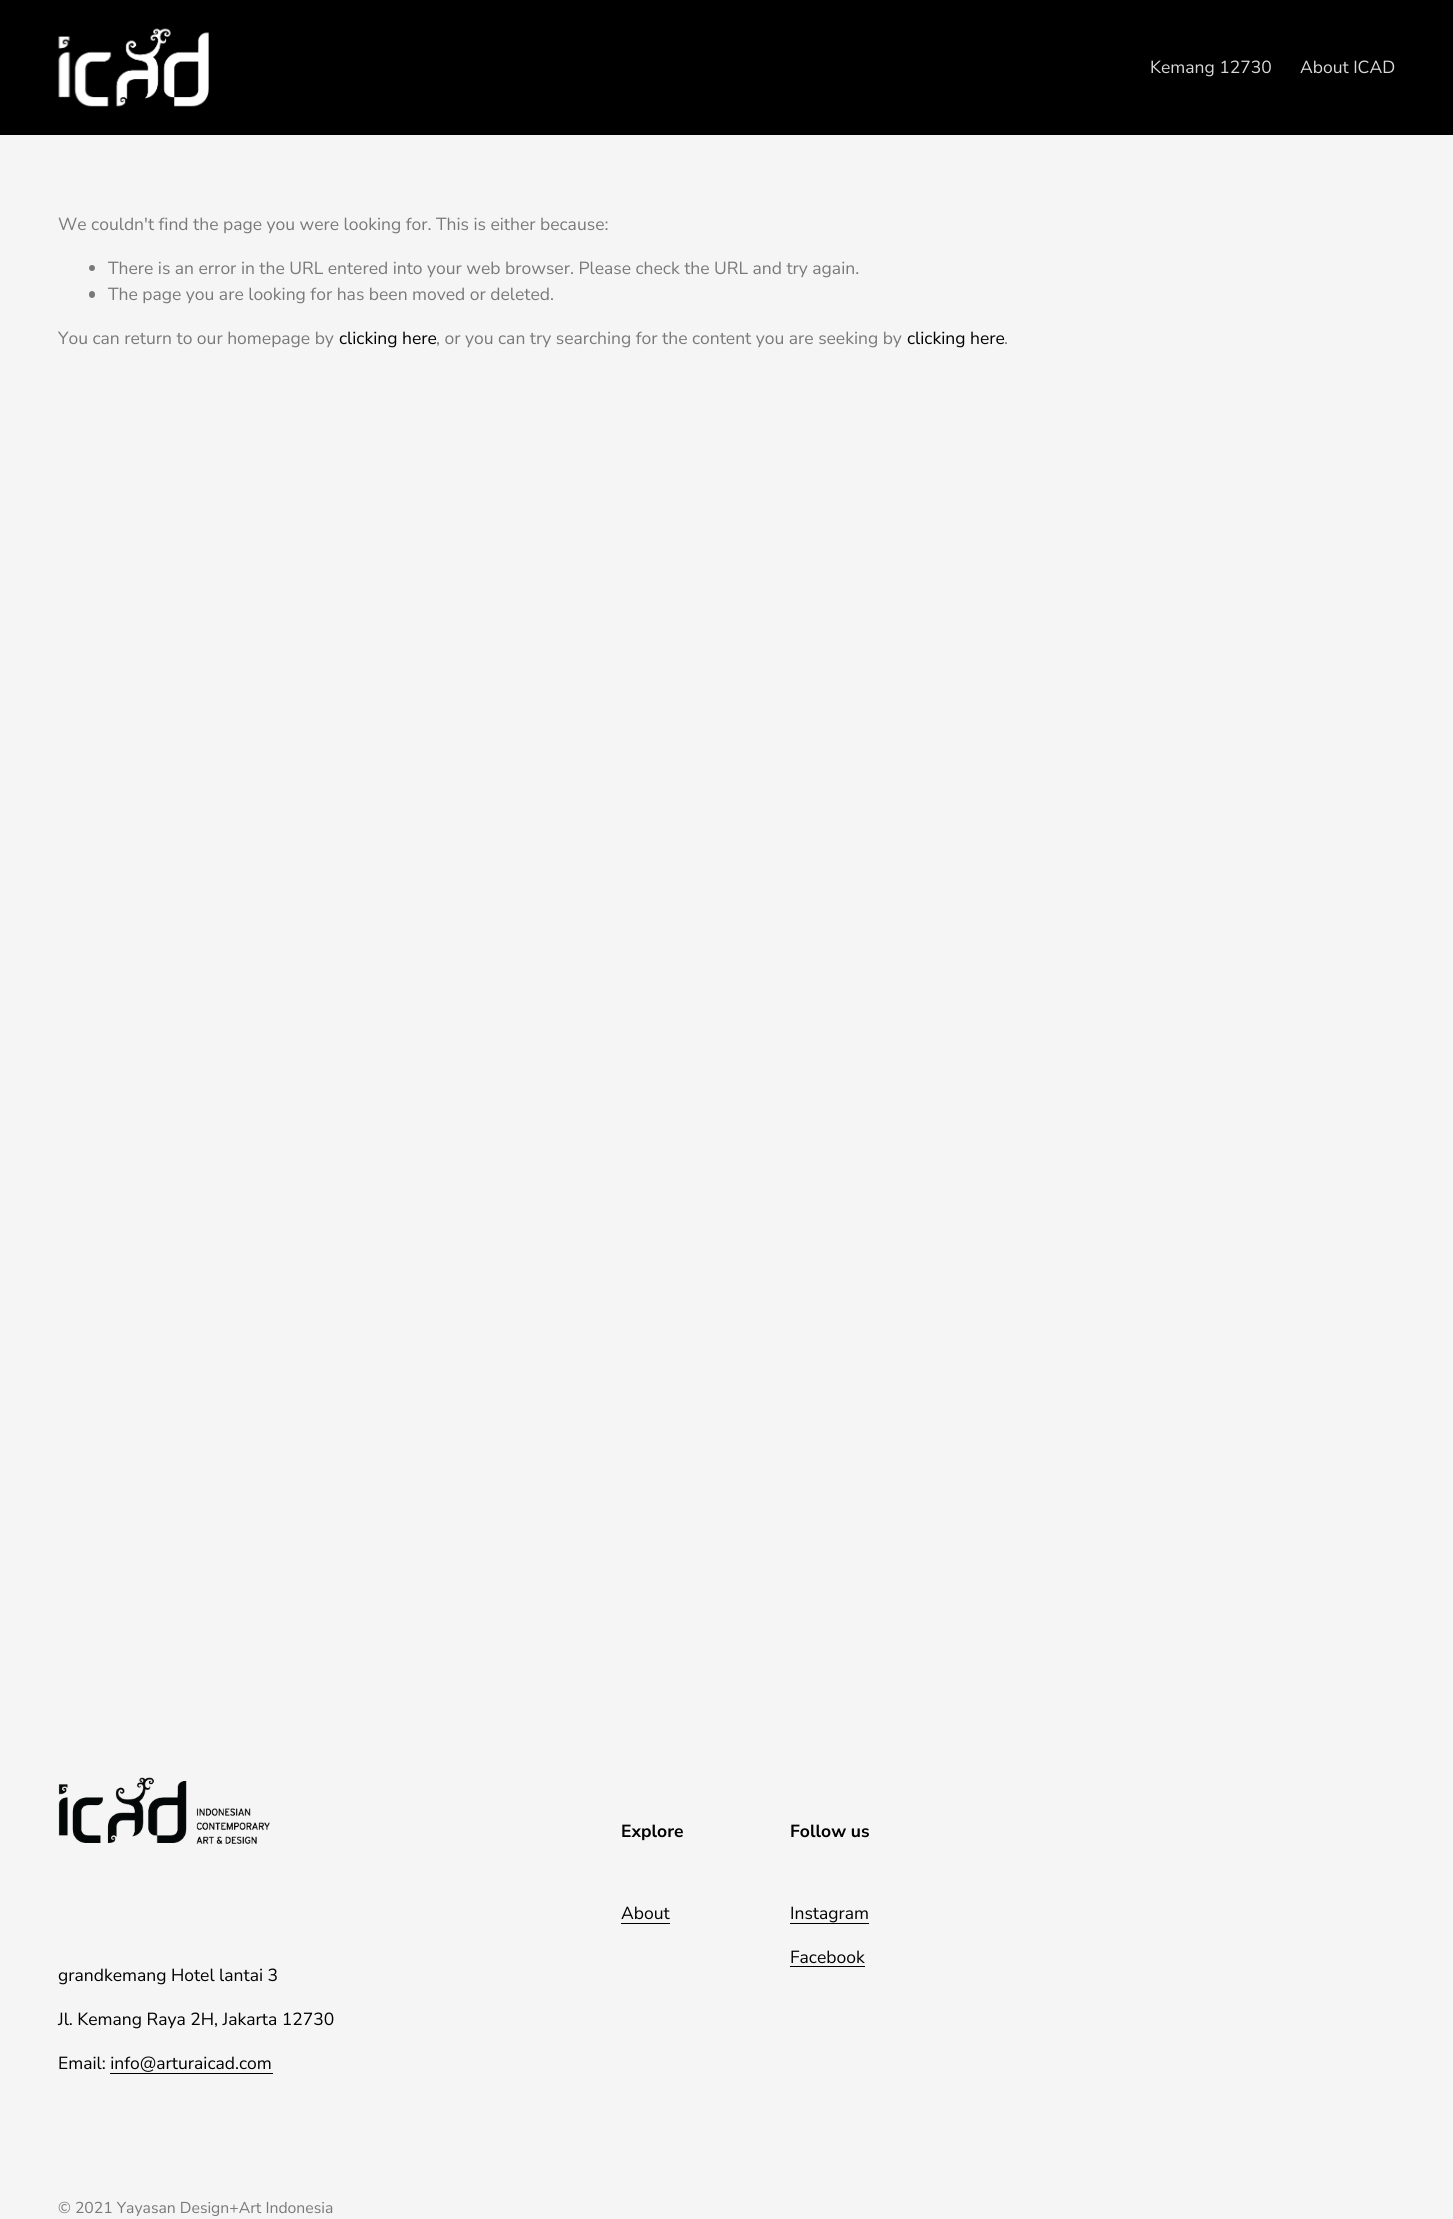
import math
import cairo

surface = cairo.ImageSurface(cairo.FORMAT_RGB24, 1453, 2219)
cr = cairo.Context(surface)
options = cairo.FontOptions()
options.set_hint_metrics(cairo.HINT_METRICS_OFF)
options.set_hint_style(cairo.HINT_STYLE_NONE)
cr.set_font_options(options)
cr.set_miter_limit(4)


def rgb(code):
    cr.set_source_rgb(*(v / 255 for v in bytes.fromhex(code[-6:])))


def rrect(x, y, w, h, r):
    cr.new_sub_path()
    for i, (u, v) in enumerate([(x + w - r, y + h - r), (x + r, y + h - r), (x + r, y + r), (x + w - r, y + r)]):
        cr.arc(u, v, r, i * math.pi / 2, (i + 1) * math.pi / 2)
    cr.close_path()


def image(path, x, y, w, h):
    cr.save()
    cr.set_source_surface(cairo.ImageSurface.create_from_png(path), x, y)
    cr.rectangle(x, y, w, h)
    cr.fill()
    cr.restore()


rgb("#f5f5f5")
cr.paint()
rgb("#000000")
cr.rectangle(0, 0, 1453, 135)
cr.fill()
image("img/1.png", 58, 28, 151, 79)
rgb("#797979")
cr.arc(92, 268, 3, 0, 2 * math.pi)
cr.fill()
rrect(89, 291, 6, 7, 3)
cr.fill()
image("img/2.png", 58, 1777, 212, 67)
for x, y, w, h, color in [
    (621, 1923, 49, 1, "#000000"),
    (790, 1923, 79, 1, "#000000"),
    (790, 1966, 75, 1, "#000000"),
    (110, 2073, 163, 1, "#000000"),
]:
    rgb(color)
    cr.rectangle(x, y, w, h)
    cr.fill()
cr.select_font_face("Nunito Sans")
cr.set_font_size(17.5)
rgb("#d9d9d9")
cr.move_to(1150, 73)
cr.show_text("Kemang 12730")
cr.move_to(1300, 73)
cr.show_text("About ICAD")
rgb("#797979")
for x, y, s in [
    (58, 230, "We couldn't find the page you were looking for. This is either because:"),
    (108, 274, "There is an error in the URL entered into your web browser. Please check the URL and try again."),
    (108, 300, "The page you are looking for has been moved or deleted."),
    (58, 344, "You can return to our homepage by"),
]:
    cr.move_to(x, y)
    cr.show_text(s)
rgb("#000000")
cr.move_to(339, 344)
cr.show_text("clicking here")
rgb("#797979")
cr.move_to(436, 344)
cr.show_text(", or you can try searching for the content you are seeking by")
rgb("#000000")
cr.move_to(907, 344)
cr.show_text("clicking here")
rgb("#797979")
cr.move_to(1004, 344)
cr.show_text(".")
cr.select_font_face("Nunito Sans", cairo.FONT_SLANT_NORMAL, cairo.FONT_WEIGHT_BOLD)
rgb("#000000")
cr.move_to(621, 1837)
cr.show_text("Explore")
cr.move_to(790, 1837)
cr.show_text("Follow us")
cr.select_font_face("Nunito Sans")
for x, y, s in [
    (621, 1919, "About"),
    (790, 1919, "Instagram"),
    (790, 1963, "Facebook"),
    (58, 1981, "grandkemang Hotel lantai 3"),
    (58, 2025, "Jl. Kemang Raya 2H, Jakarta 12730"),
    (58, 2069, "Email: info@arturaicad.com"),
]:
    cr.move_to(x, y)
    cr.show_text(s)
cr.set_font_size(15.75)
rgb("#797979")
cr.move_to(58, 2213)
cr.show_text("© 2021 Yayasan Design+Art Indonesia")
surface.write_to_png("page.png")
